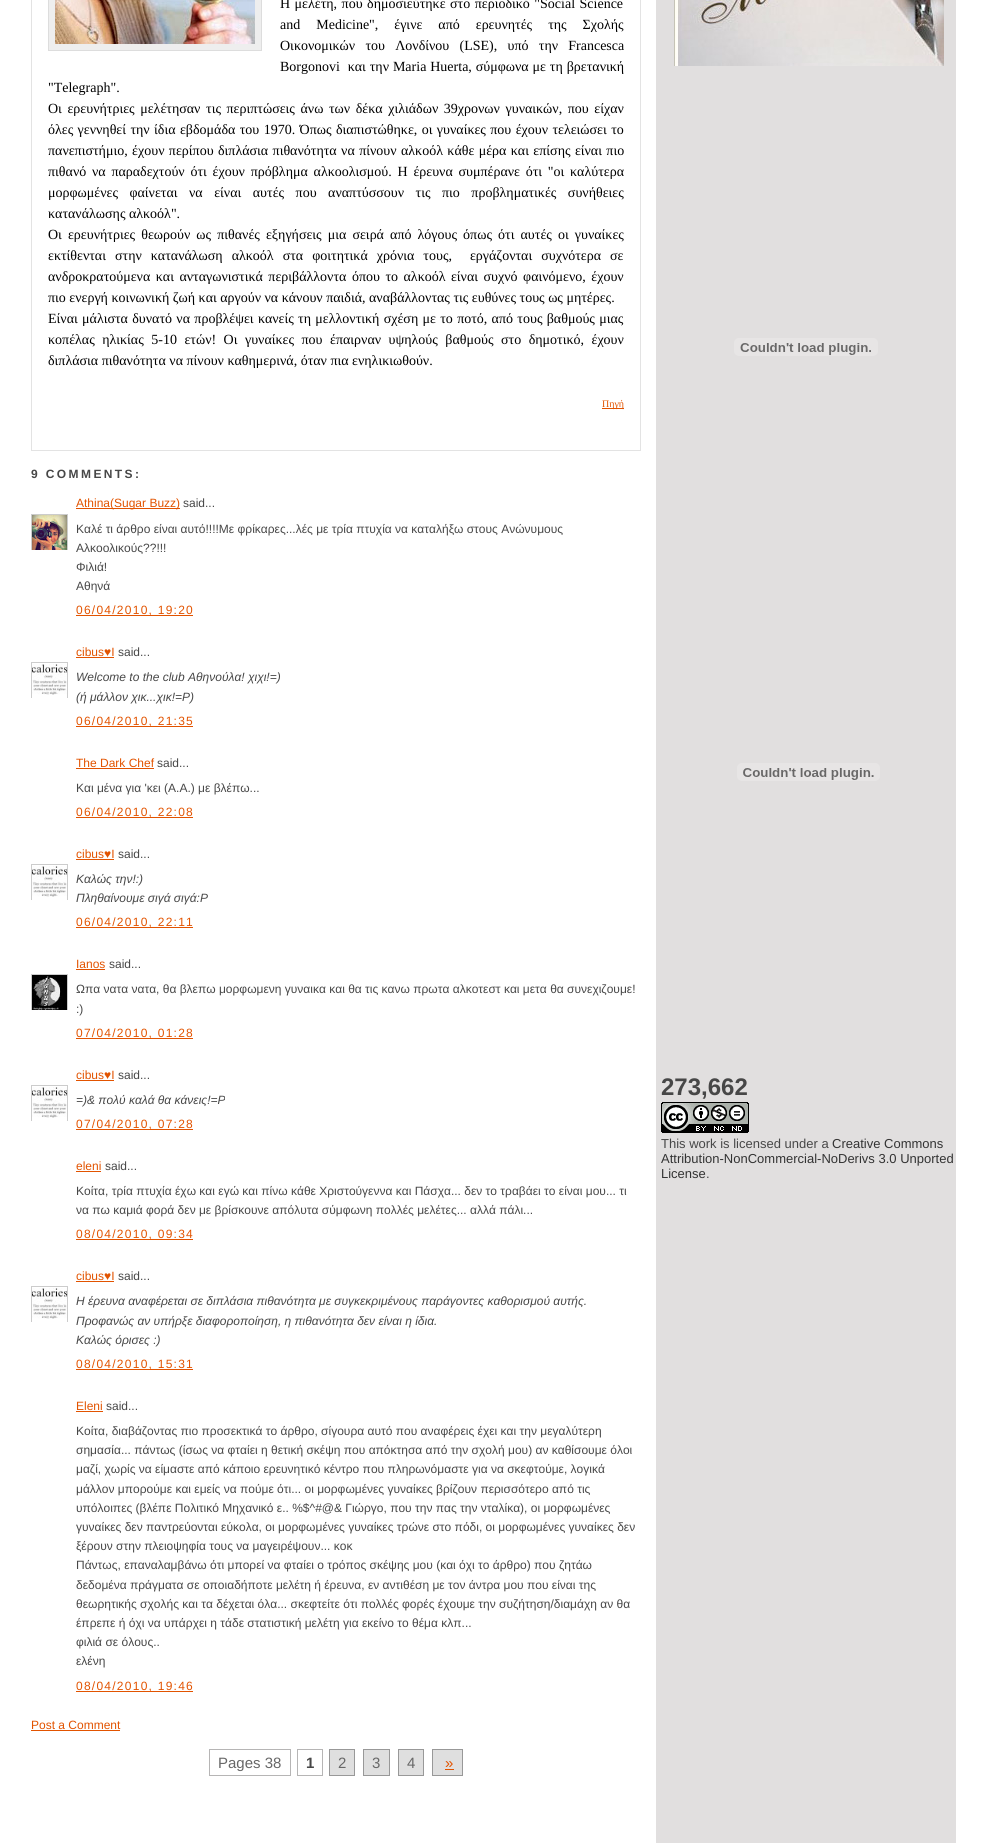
import math
import cairo

surface = cairo.ImageSurface(cairo.FORMAT_RGB24, 982, 1843)
cr = cairo.Context(surface)
options = cairo.FontOptions()
options.set_hint_metrics(cairo.HINT_METRICS_OFF)
options.set_hint_style(cairo.HINT_STYLE_NONE)
cr.set_font_options(options)
cr.set_miter_limit(4)


def rgb(code):
    cr.set_source_rgb(*(v / 255 for v in bytes.fromhex(code[-6:])))


def tracked(x, y, s, letter, word):
    cr.move_to(x, y)
    for ch in s:
        cr.show_text(ch)
        cr.rel_move_to(letter + word * (ch == ' '), 0)


def image(path, x, y, w, h):
    cr.save()
    cr.set_source_surface(cairo.ImageSurface.create_from_png(path), x, y)
    cr.rectangle(x, y, w, h)
    cr.fill()
    cr.restore()


rgb("#ffffff")
cr.paint()
rgb("#e1dfdf")
cr.rectangle(656, 0, 300, 1843)
cr.fill()
cr.rectangle(31.5, -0.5, 609, 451)
rgb("#e3e3e3")
cr.set_line_width(1)
cr.stroke()
rgb("#eeeeee")
cr.rectangle(48.5, -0.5, 213, 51)
cr.fill_preserve()
rgb("#dddddd")
cr.stroke()
image("img/1.png", 55, 0, 200, 44)
rgb("#e25300")
cr.rectangle(602, 408, 22, 1)
cr.fill()
cr.rectangle(76, 508, 104, 1)
cr.fill()
cr.save()
cr.rectangle(31, 514, 37, 36)
cr.clip()
cr.rectangle(31.5, 514.5, 36, 36)
rgb("#cccccc")
cr.stroke()
cr.restore()
image("img/2.png", 32, 515, 35, 35)
cr.rectangle(76, 615, 117, 1)
cr.fill()
cr.rectangle(76, 657, 38, 1)
cr.fill()
cr.save()
cr.rectangle(31, 662, 37, 36)
cr.clip()
cr.rectangle(31.5, 662.5, 36, 36)
rgb("#cccccc")
cr.stroke()
cr.restore()
image("img/3.png", 32, 664, 35, 31)
for x, y, w, h, color in [
    (76, 726, 117, 1, "#e25300"),
    (76, 768, 78, 1, "#e25300"),
    (76, 817, 117, 1, "#e25300"),
    (76, 859, 38, 1, "#e25300"),
]:
    rgb(color)
    cr.rectangle(x, y, w, h)
    cr.fill()
cr.save()
cr.rectangle(31, 864, 37, 36)
cr.clip()
cr.rectangle(31.5, 864.5, 36, 36)
rgb("#cccccc")
cr.stroke()
cr.restore()
image("img/3.png", 32, 866, 35, 31)
cr.rectangle(76, 927, 117, 1)
cr.fill()
cr.rectangle(76, 969, 29, 1)
cr.fill()
cr.save()
cr.rectangle(31, 974, 37, 36)
cr.clip()
cr.rectangle(31.5, 974.5, 36, 36)
rgb("#cccccc")
cr.stroke()
cr.restore()
image("img/4.png", 32, 975, 35, 35)
cr.rectangle(76, 1038, 117, 1)
cr.fill()
cr.rectangle(76, 1080, 38, 1)
cr.fill()
cr.save()
cr.rectangle(31, 1085, 37, 36)
cr.clip()
cr.rectangle(31.5, 1085.5, 36, 36)
rgb("#cccccc")
cr.stroke()
cr.restore()
image("img/3.png", 32, 1087, 35, 31)
for x, y, w, h, color in [
    (76, 1129, 117, 1, "#e25300"),
    (76, 1171, 25, 1, "#e25300"),
    (76, 1239, 117, 1, "#e25300"),
    (76, 1281, 38, 1, "#e25300"),
]:
    rgb(color)
    cr.rectangle(x, y, w, h)
    cr.fill()
cr.save()
cr.rectangle(31, 1286, 37, 36)
cr.clip()
cr.rectangle(31.5, 1286.5, 36, 36)
rgb("#cccccc")
cr.stroke()
cr.restore()
image("img/3.png", 32, 1288, 35, 31)
for x, y, w, h, color in [
    (76, 1369, 117, 1, "#e25300"),
    (76, 1411, 27, 1, "#e25300"),
    (76, 1691, 117, 1, "#e25300"),
    (31, 1730, 89, 1, "#e25300"),
]:
    rgb(color)
    cr.rectangle(x, y, w, h)
    cr.fill()
cr.rectangle(209.5, 1749.5, 81, 26)
rgb("#b6b5b5")
cr.stroke()
cr.rectangle(297.5, 1749.5, 25, 26)
cr.stroke()
rgb("#dfdfdf")
cr.rectangle(329.5, 1749.5, 25, 26)
cr.fill_preserve()
rgb("#989898")
cr.stroke()
rgb("#dfdfdf")
cr.rectangle(363.5, 1749.5, 26, 26)
cr.fill_preserve()
rgb("#989898")
cr.stroke()
rgb("#dfdfdf")
cr.rectangle(398.5, 1749.5, 25, 26)
cr.fill_preserve()
rgb("#989898")
cr.stroke()
for x, y, w, h, color in [
    (433, 1750, 29, 25, "#dfdfdf"),
    (432, 1749, 31, 1, "#989898"),
    (432, 1775, 13, 1, "#989898"),
    (432, 1749, 1, 27, "#989898"),
    (462, 1749, 1, 27, "#989898"),
    (445, 1775, 18, 1, "#989898"),
    (445, 1769, 9, 1, "#e25300"),
]:
    rgb(color)
    cr.rectangle(x, y, w, h)
    cr.fill()
image("img/5.png", 674, 0, 270, 66)
image("img/6.png", 734, 338, 144, 18)
image("img/7.png", 737, 763, 143, 18)
image("img/8.png", 661, 1102, 88, 31)
cr.select_font_face("Liberation Serif")
cr.set_font_size(14)
rgb("#000000")
tracked(280, 8, "Η μελέτη, που δημοσιεύτηκε στο περιοδικό \"Social Science", 0, 1)
tracked(280, 29, "and Medicine\", έγινε από ερευνητές της Σχολής", 0, 12.5)
tracked(280, 50, "Οικονομικών του Λονδίνου (LSE), υπό την Francesca", 0, 6.75)
tracked(280, 71, "Borgonovi  και την Maria Huerta, σύμφωνα με τη βρετανική", 0, 0.4)
cr.move_to(48, 92)
cr.show_text("\"Telegraph\".")
tracked(48, 113, "Οι ερευνήτριες μελέτησαν τις περιπτώσεις άνω των δέκα χιλιάδων 39χρονων γυναικών, που είχαν", 0, 2.1)
tracked(48, 134, "όλες γεννηθεί την ίδια εβδομάδα του 1970. Όπως διαπιστώθηκε, οι γυναίκες που έχουν τελειώσει το", 0, 0.9)
tracked(48, 155, "πανεπιστήμιο, έχουν περίπου διπλάσια πιθανότητα να πίνουν αλκοόλ κάθε μέρα και επίσης είναι πιο", 0, 0.9)
tracked(48, 176, "πιθανό να παραδεχτούν ότι έχουν πρόβλημα αλκοολισμού. Η έρευνα συμπέρανε ότι \"οι καλύτερα", 0, 2.25)
tracked(48, 197, "μορφωμένες φαίνεται να είναι αυτές που αναπτύσσουν τις πιο προβληματικές συνήθειες", 0, 8)
cr.move_to(48, 218)
cr.show_text("κατανάλωσης αλκοόλ\".")
tracked(48, 239, "Οι ερευνήτριες θεωρούν ως πιθανές εξηγήσεις μια σειρά από λόγους όπως ότι αυτές οι γυναίκες", 0, 2.6)
tracked(48, 260, "εκτίθενται στην κατανάλωση αλκοόλ στα φοιτητικά χρόνια τους,  εργάζονται συχνότερα σε", 0, 5.5)
tracked(48, 281, "ανδροκρατούμενα και ανταγωνιστικά περιβάλλοντα όπου το αλκοόλ είναι συχνό φαινόμενο, έχουν", 0, 2)
cr.move_to(48, 302)
cr.show_text("πιο ενεργή κοινωνική ζωή και αργούν να κάνουν παιδιά, αναβάλλοντας τις ευθύνες τους ως μητέρες.")
tracked(48, 323, "Είναι μάλιστα δυνατό να προβλέψει κανείς τη μελλοντική σχέση με το ποτό, από τους βαθμούς μιας", 0, 0.8)
tracked(48, 344, "κοπέλας ηλικίας 5-10 ετών! Οι γυναίκες που έπαιρναν υψηλούς βαθμούς στο δημοτικό, έχουν", 0, 4)
cr.move_to(48, 365)
cr.show_text("διπλάσια πιθανότητα να πίνουν καθημερινά, όταν πια ενηλικιωθούν.")
cr.set_font_size(10)
rgb("#e25300")
cr.move_to(602, 407)
cr.show_text("Πηγή")
cr.select_font_face("Liberation Sans", cairo.FONT_SLANT_NORMAL, cairo.FONT_WEIGHT_BOLD)
cr.set_font_size(12)
rgb("#474747")
tracked(31, 478, "9 COMMENTS:", 2.4, 0)
cr.select_font_face("Liberation Sans")
rgb("#e25300")
cr.move_to(76, 507)
cr.show_text("Athina(Sugar Buzz)")
rgb("#474747")
for x, y, s in [
    (183, 507, "said..."),
    (76, 533, "Καλέ τι άρθρο είναι αυτό!!!!Με φρίκαρες...λές με τρία πτυχία να καταλήξω στους Ανώνυμους"),
    (76, 552, "Αλκοολικούς??!!!"),
    (76, 571, "Φιλιά!"),
    (76, 590, "Αθηνά"),
]:
    cr.move_to(x, y)
    cr.show_text(s)
rgb("#e25300")
tracked(76, 614, "06/04/2010, 19:20", 1.25, 0)
cr.move_to(76, 656)
cr.show_text("cibus♥I")
rgb("#474747")
cr.move_to(118, 656)
cr.show_text("said...")
cr.select_font_face("Liberation Sans", cairo.FONT_SLANT_ITALIC)
cr.move_to(76, 681)
cr.show_text("Welcome to the club Αθηνούλα! χιχι!=)")
cr.move_to(76, 701)
cr.show_text("(ή μάλλον χικ...χικ!=P)")
cr.select_font_face("Liberation Sans")
rgb("#e25300")
tracked(76, 725, "06/04/2010, 21:35", 1.25, 0)
cr.move_to(76, 767)
cr.show_text("The Dark Chef")
rgb("#474747")
cr.move_to(157, 767)
cr.show_text("said...")
cr.move_to(76, 792)
cr.show_text("Και μένα για 'κει (Α.Α.) με βλέπω...")
rgb("#e25300")
tracked(76, 816, "06/04/2010, 22:08", 1.25, 0)
cr.move_to(76, 858)
cr.show_text("cibus♥I")
rgb("#474747")
cr.move_to(118, 858)
cr.show_text("said...")
cr.select_font_face("Liberation Sans", cairo.FONT_SLANT_ITALIC)
cr.move_to(76, 883)
cr.show_text("Καλώς την!:)")
cr.move_to(76, 902)
cr.show_text("Πληθαίνουμε σιγά σιγά:P")
cr.select_font_face("Liberation Sans")
rgb("#e25300")
tracked(76, 926, "06/04/2010, 22:11", 1.25, 0)
cr.move_to(76, 968)
cr.show_text("Ianos")
rgb("#474747")
for x, y, s in [
    (109, 968, "said..."),
    (76, 993, "Ωπα νατα νατα, θα βλεπω μορφωμενη γυναικα και θα τις κανω πρωτα αλκοτεστ και μετα θα συνεχιζουμε!"),
    (76, 1013, ":)"),
]:
    cr.move_to(x, y)
    cr.show_text(s)
rgb("#e25300")
tracked(76, 1037, "07/04/2010, 01:28", 1.25, 0)
cr.move_to(76, 1079)
cr.show_text("cibus♥I")
rgb("#474747")
cr.move_to(118, 1079)
cr.show_text("said...")
cr.select_font_face("Liberation Sans", cairo.FONT_SLANT_ITALIC)
cr.move_to(76, 1104)
cr.show_text("=)& πολύ καλά θα κάνεις!=P")
cr.select_font_face("Liberation Sans")
rgb("#e25300")
tracked(76, 1128, "07/04/2010, 07:28", 1.25, 0)
cr.move_to(76, 1170)
cr.show_text("eleni")
rgb("#474747")
for x, y, s in [
    (105, 1170, "said..."),
    (76, 1195, "Κοίτα, τρία πτυχία έχω και εγώ και πίνω κάθε Χριστούγεννα και Πάσχα... δεν το τραβάει το είναι μου... τι"),
    (76, 1214, "να πω καμιά φορά δεν με βρίσκουνε απόλυτα σύμφωνη πολλές μελέτες... αλλά πάλι..."),
]:
    cr.move_to(x, y)
    cr.show_text(s)
rgb("#e25300")
tracked(76, 1238, "08/04/2010, 09:34", 1.25, 0)
cr.move_to(76, 1280)
cr.show_text("cibus♥I")
rgb("#474747")
cr.move_to(118, 1280)
cr.show_text("said...")
cr.select_font_face("Liberation Sans", cairo.FONT_SLANT_ITALIC)
for x, y, s in [
    (76, 1305, "Η έρευνα αναφέρεται σε διπλάσια πιθανότητα με συγκεκριμένους παράγοντες καθορισμού αυτής."),
    (76, 1325, "Προφανώς αν υπήρξε διαφοροποίηση, η πιθανότητα δεν είναι η ίδια."),
    (76, 1344, "Καλώς όρισες :)"),
]:
    cr.move_to(x, y)
    cr.show_text(s)
cr.select_font_face("Liberation Sans")
rgb("#e25300")
tracked(76, 1368, "08/04/2010, 15:31", 1.25, 0)
cr.move_to(76, 1410)
cr.show_text("Eleni")
rgb("#474747")
for x, y, s in [
    (106, 1410, "said..."),
    (76, 1435, "Κοίτα, διαβάζοντας πιο προσεκτικά το άρθρο, σίγουρα αυτό που αναφέρεις έχει και την μεγαλύτερη"),
    (76, 1454, "σημασία... πάντως (ίσως να φταίει η θετική σκέψη που απόκτησα από την σχολή μου) αν καθίσουμε όλοι"),
    (76, 1473, "μαζί, χωρίς να είμαστε από κάποιο ερευνητικό κέντρο που πληρωνόμαστε για να σκεφτούμε, λογικά"),
    (76, 1493, "μάλλον μπορούμε και εμείς να πούμε ότι... οι μορφωμένες γυναίκες βρίζουν περισσότερο από τις"),
    (76, 1512, "υπόλοιπες (βλέπε Πολιτικό Μηχανικό ε.. %$^#@& Γιώργο, που την πας την νταλίκα), οι μορφωμένες"),
    (76, 1531, "γυναίκες δεν παντρεύονται εύκολα, οι μορφωμένες γυναίκες τρώνε στο πόδι, οι μορφωμένες γυναίκες δεν"),
    (76, 1550, "ξέρουν στην πλειοψηφία τους να μαγειρέψουν... κοκ"),
    (76, 1569, "Πάντως, επαναλαμβάνω ότι μπορεί να φταίει ο τρόπος σκέψης μου (και όχι το άρθρο) που ζητάω"),
    (76, 1589, "δεδομένα πράγματα σε οποιαδήποτε μελέτη ή έρευνα, εν αντιθέση με τον άντρα μου που είναι της"),
    (76, 1608, "θεωρητικής σχολής και τα δέχεται όλα... σκεφτείτε ότι πολλές φορές έχουμε την συζήτηση/διαμάχη αν θα"),
    (76, 1627, "έπρεπε ή όχι να υπάρχει η τάδε στατιστική μελέτη για εκείνο το θέμα κλπ..."),
    (76, 1646, "φιλιά σε όλους.."),
    (76, 1665, "ελένη"),
]:
    cr.move_to(x, y)
    cr.show_text(s)
rgb("#e25300")
tracked(76, 1690, "08/04/2010, 19:46", 1.25, 0)
cr.move_to(31, 1729)
cr.show_text("Post a Comment")
cr.set_font_size(15)
rgb("#676767")
cr.move_to(218, 1768)
cr.show_text("Pages 38")
cr.select_font_face("Liberation Sans", cairo.FONT_SLANT_NORMAL, cairo.FONT_WEIGHT_BOLD)
rgb("#474747")
cr.move_to(306, 1768)
cr.show_text("1")
cr.select_font_face("Liberation Sans")
rgb("#676767")
for x, y, s in [
    (338, 1768, "2"),
    (372, 1768, "3"),
    (407, 1768, "4"),
]:
    cr.move_to(x, y)
    cr.show_text(s)
rgb("#e25300")
cr.move_to(445, 1768)
cr.show_text("»")
cr.select_font_face("Liberation Sans", cairo.FONT_SLANT_NORMAL, cairo.FONT_WEIGHT_BOLD)
cr.set_font_size(24)
rgb("#474747")
cr.move_to(661, 1095)
cr.show_text("273,662")
cr.select_font_face("Liberation Sans")
cr.set_font_size(13)
cr.move_to(661, 1148)
cr.show_text("This work is licensed under a")
rgb("#333333")
for x, y, s in [
    (832, 1148, "Creative Commons"),
    (661, 1163, "Attribution-NonCommercial-NoDerivs 3.0 Unported"),
    (661, 1178, "License"),
]:
    cr.move_to(x, y)
    cr.show_text(s)
rgb("#474747")
cr.move_to(706, 1178)
cr.show_text(".")
surface.write_to_png("page.png")
